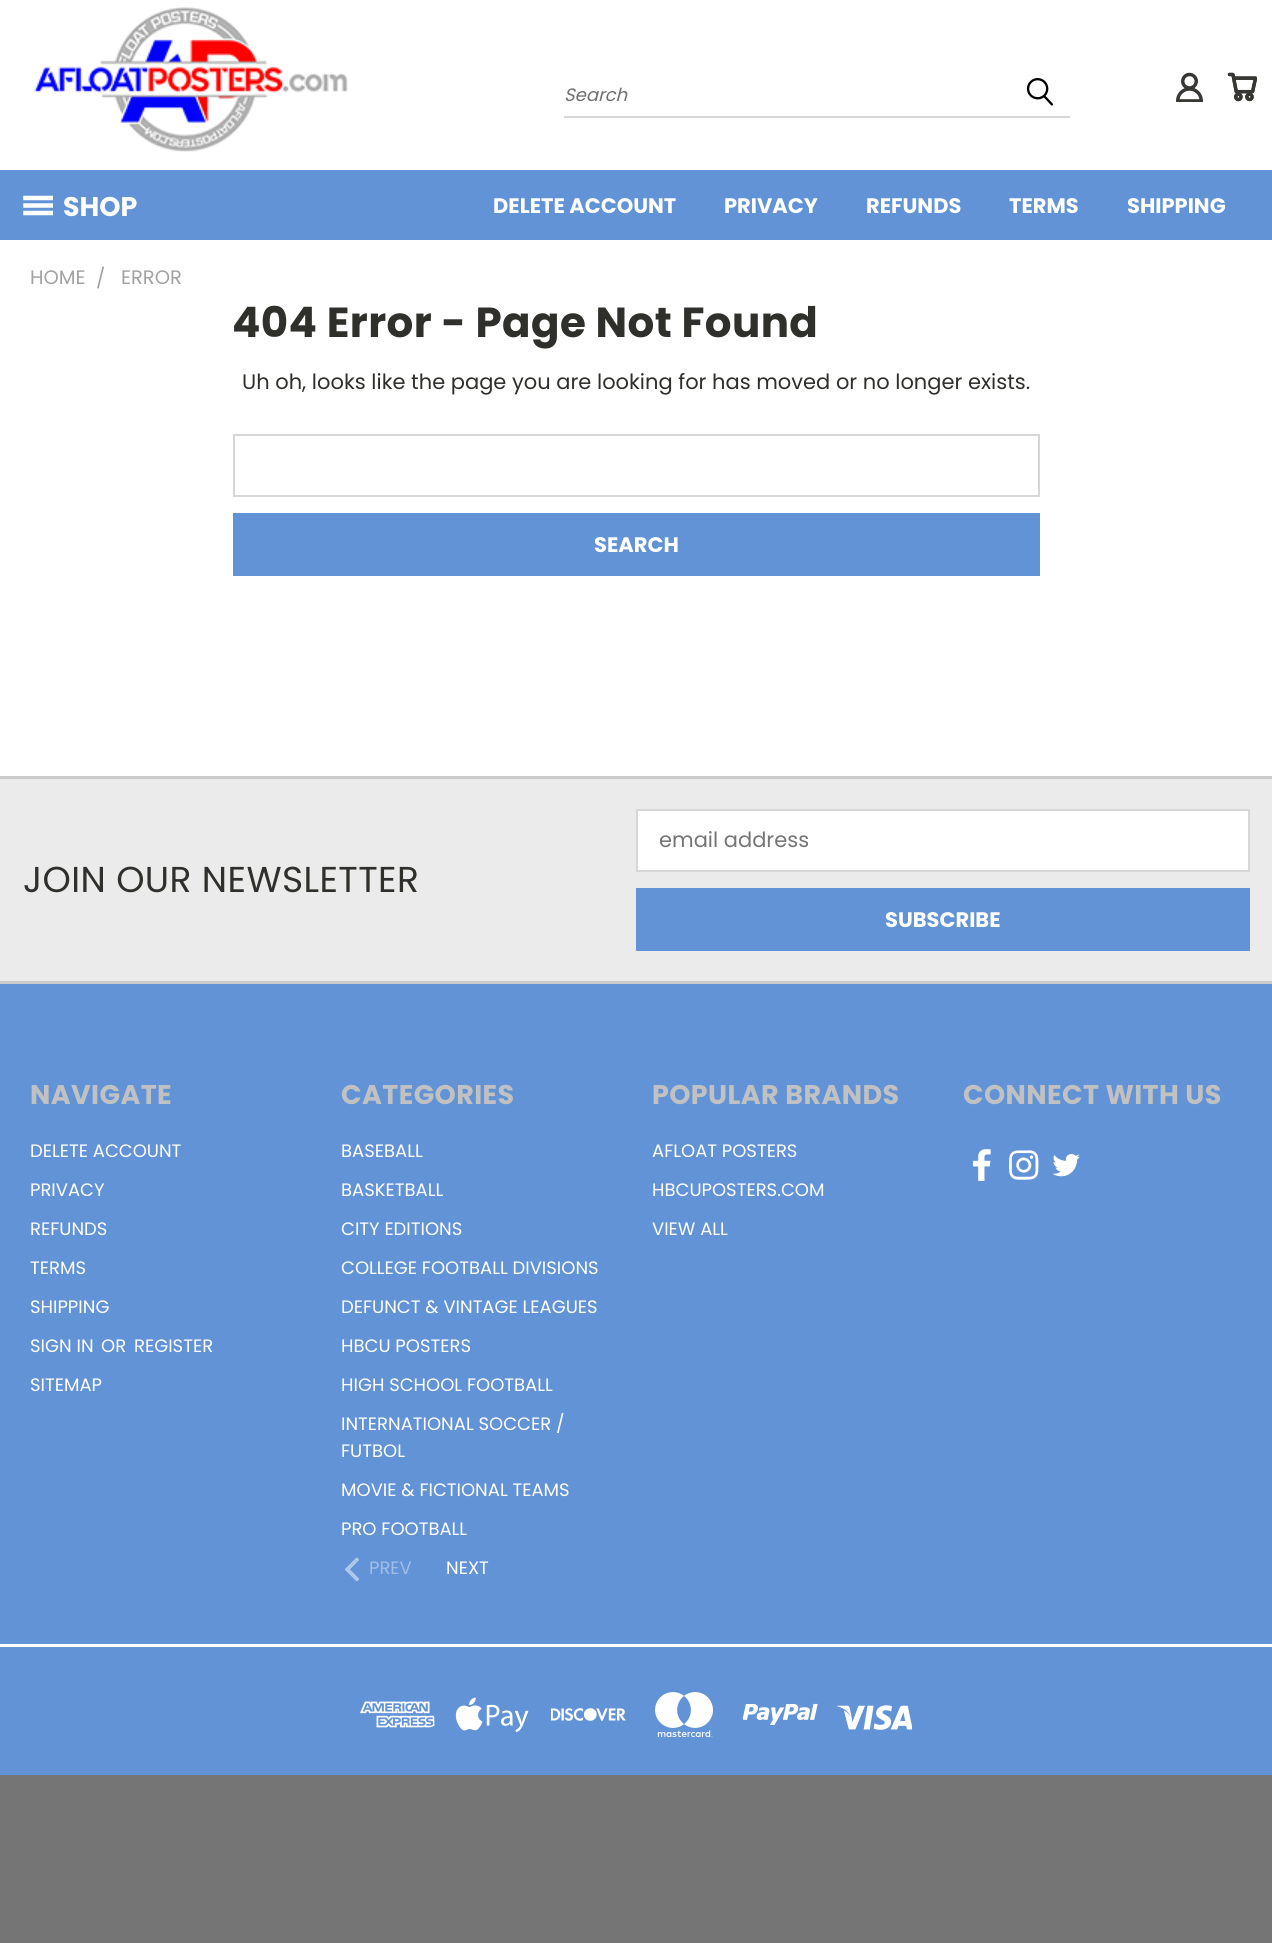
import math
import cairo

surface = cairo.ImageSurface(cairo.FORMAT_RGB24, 1272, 1943)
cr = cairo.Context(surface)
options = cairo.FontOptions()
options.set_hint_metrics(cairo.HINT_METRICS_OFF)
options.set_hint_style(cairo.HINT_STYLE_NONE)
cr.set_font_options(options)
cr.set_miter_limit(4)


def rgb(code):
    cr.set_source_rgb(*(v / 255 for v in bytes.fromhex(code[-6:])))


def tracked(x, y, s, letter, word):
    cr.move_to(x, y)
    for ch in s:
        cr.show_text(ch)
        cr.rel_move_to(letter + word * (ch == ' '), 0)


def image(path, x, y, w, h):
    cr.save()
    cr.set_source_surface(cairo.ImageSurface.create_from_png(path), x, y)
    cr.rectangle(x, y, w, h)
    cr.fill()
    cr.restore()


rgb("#ffffff")
cr.paint()
image("img/1.png", 34, 7, 314, 145)
rgb("#d7d7d7")
cr.rectangle(564, 116, 506, 2)
cr.fill()
image("img/2.png", 1026, 78, 28, 28)
image("img/3.png", 1176, 72, 27, 30)
image("img/4.png", 1227, 72, 30, 30)
rgb("#6293d6")
cr.rectangle(0, 170, 1272, 70)
cr.fill()
image("img/5.png", 23, 195, 30, 21)
cr.rectangle(234, 435, 805, 61)
rgb("#d7d7d7")
cr.stroke()
for x, y, w, h, color in [
    (233, 513, 807, 63, "#6293d6"),
    (0, 779, 1272, 202, "#ebebeb"),
    (0, 776, 1272, 3, "#cdcccc"),
]:
    rgb(color)
    cr.rectangle(x, y, w, h)
    cr.fill()
rgb("#ffffff")
cr.rectangle(637, 810, 612, 61)
cr.fill_preserve()
rgb("#d7d7d7")
cr.stroke()
for x, y, w, h, color in [
    (636, 888, 614, 63, "#6293d6"),
    (0, 984, 1272, 791, "#6293d6"),
    (0, 981, 1272, 3, "#cdcccc"),
]:
    rgb(color)
    cr.rectangle(x, y, w, h)
    cr.fill()
image("img/6.png", 345, 1557, 14, 24)
image("img/7.png", 972, 1149, 19, 32)
image("img/8.png", 1009, 1150, 30, 30)
image("img/9.png", 1052, 1154, 28, 23)
rgb("#ffffff")
cr.rectangle(0, 1644, 1272, 3)
cr.fill()
image("img/10.png", 360, 1701, 75, 27)
image("img/11.png", 455, 1697, 74, 36)
image("img/12.png", 551, 1708, 75, 13)
image("img/13.png", 655, 1692, 58, 46)
image("img/14.png", 743, 1703, 75, 22)
image("img/15.png", 837, 1705, 75, 25)
rgb("#757575")
cr.rectangle(0, 1775, 1272, 168)
cr.fill()
cr.select_font_face("Poppins", cairo.FONT_SLANT_ITALIC)
cr.set_font_size(18)
rgb("#70706e")
cr.move_to(564, 101)
cr.show_text("Search")
cr.select_font_face("Poppins", cairo.FONT_SLANT_NORMAL, cairo.FONT_WEIGHT_BOLD)
cr.set_font_size(27)
rgb("#ffffff")
cr.move_to(63, 216)
cr.show_text("SHOP")
cr.set_font_size(21)
for x, y, s in [
    (493, 213, "DELETE ACCOUNT"),
    (724, 213, "PRIVACY"),
    (866, 213, "REFUNDS"),
    (1009, 213, "TERMS"),
    (1127, 213, "SHIPPING"),
]:
    cr.move_to(x, y)
    cr.show_text(s)
cr.select_font_face("Poppins")
cr.set_font_size(19.5)
rgb("#a2a2a2")
for x, y, s in [
    (30, 284, "HOME"),
    (96, 285, "/"),
    (121, 284, "ERROR"),
]:
    cr.move_to(x, y)
    cr.show_text(s)
cr.select_font_face("Poppins", cairo.FONT_SLANT_NORMAL, cairo.FONT_WEIGHT_BOLD)
cr.set_font_size(42)
rgb("#2f2f2b")
tracked(232, 337, "404 Error - Page Not Found", 0.4, 0)
cr.select_font_face("Poppins")
cr.set_font_size(21)
cr.move_to(242, 389)
cr.show_text("Uh oh, looks like the page you are looking for has moved or no longer exists.")
cr.select_font_face("Poppins", cairo.FONT_SLANT_NORMAL, cairo.FONT_WEIGHT_BOLD)
rgb("#ffffff")
cr.move_to(594, 552)
cr.show_text("SEARCH")
cr.select_font_face("Poppins")
cr.set_font_size(36)
rgb("#2f2f2b")
tracked(23, 892, "JOIN OUR NEWSLETTER", 0.4, 0)
cr.set_font_size(21)
rgb("#757575")
cr.move_to(659, 847)
cr.show_text("email address")
cr.select_font_face("Poppins", cairo.FONT_SLANT_NORMAL, cairo.FONT_WEIGHT_BOLD)
rgb("#ffffff")
cr.move_to(885, 927)
cr.show_text("SUBSCRIBE")
cr.set_font_size(27)
rgb("#c1c1c1")
tracked(30, 1104, "NAVIGATE", 0.4, 0)
cr.select_font_face("Poppins")
cr.set_font_size(18)
rgb("#ffffff")
for x, y, s in [
    (30, 1157, "DELETE ACCOUNT"),
    (30, 1196, "PRIVACY"),
    (30, 1235, "REFUNDS"),
    (30, 1274, "TERMS"),
    (30, 1313, "SHIPPING"),
    (30, 1352, "SIGN IN"),
    (101, 1352, "OR"),
    (134, 1352, "REGISTER"),
    (30, 1391, "SITEMAP"),
]:
    cr.move_to(x, y)
    cr.show_text(s)
cr.select_font_face("Poppins", cairo.FONT_SLANT_NORMAL, cairo.FONT_WEIGHT_BOLD)
cr.set_font_size(27)
rgb("#c1c1c1")
tracked(341, 1104, "CATEGORIES", 0.4, 0)
cr.select_font_face("Poppins")
cr.set_font_size(18)
rgb("#ffffff")
for x, y, s in [
    (341, 1157, "BASEBALL"),
    (341, 1196, "BASKETBALL"),
    (341, 1235, "CITY EDITIONS"),
    (341, 1274, "COLLEGE FOOTBALL DIVISIONS"),
    (341, 1313, "DEFUNCT & VINTAGE LEAGUES"),
    (341, 1352, "HBCU POSTERS"),
    (341, 1391, "HIGH SCHOOL FOOTBALL"),
    (341, 1430, "INTERNATIONAL SOCCER /"),
    (341, 1457, "FUTBOL"),
    (341, 1496, "MOVIE & FICTIONAL TEAMS"),
    (341, 1535, "PRO FOOTBALL"),
]:
    cr.move_to(x, y)
    cr.show_text(s)
rgb("#a1bee6")
cr.move_to(369, 1574)
cr.show_text("PREV")
rgb("#ffffff")
cr.move_to(446, 1574)
cr.show_text("NEXT")
cr.select_font_face("Poppins", cairo.FONT_SLANT_NORMAL, cairo.FONT_WEIGHT_BOLD)
cr.set_font_size(27)
rgb("#c1c1c1")
tracked(652, 1104, "POPULAR BRANDS", 0.4, 0)
cr.select_font_face("Poppins")
cr.set_font_size(18)
rgb("#ffffff")
for x, y, s in [
    (652, 1157, "AFLOAT POSTERS"),
    (652, 1196, "HBCUPOSTERS.COM"),
    (652, 1235, "VIEW ALL"),
]:
    cr.move_to(x, y)
    cr.show_text(s)
cr.select_font_face("Poppins", cairo.FONT_SLANT_NORMAL, cairo.FONT_WEIGHT_BOLD)
cr.set_font_size(27)
rgb("#c1c1c1")
tracked(963, 1104, "CONNECT WITH US", 0.4, 0)
surface.write_to_png("page.png")
